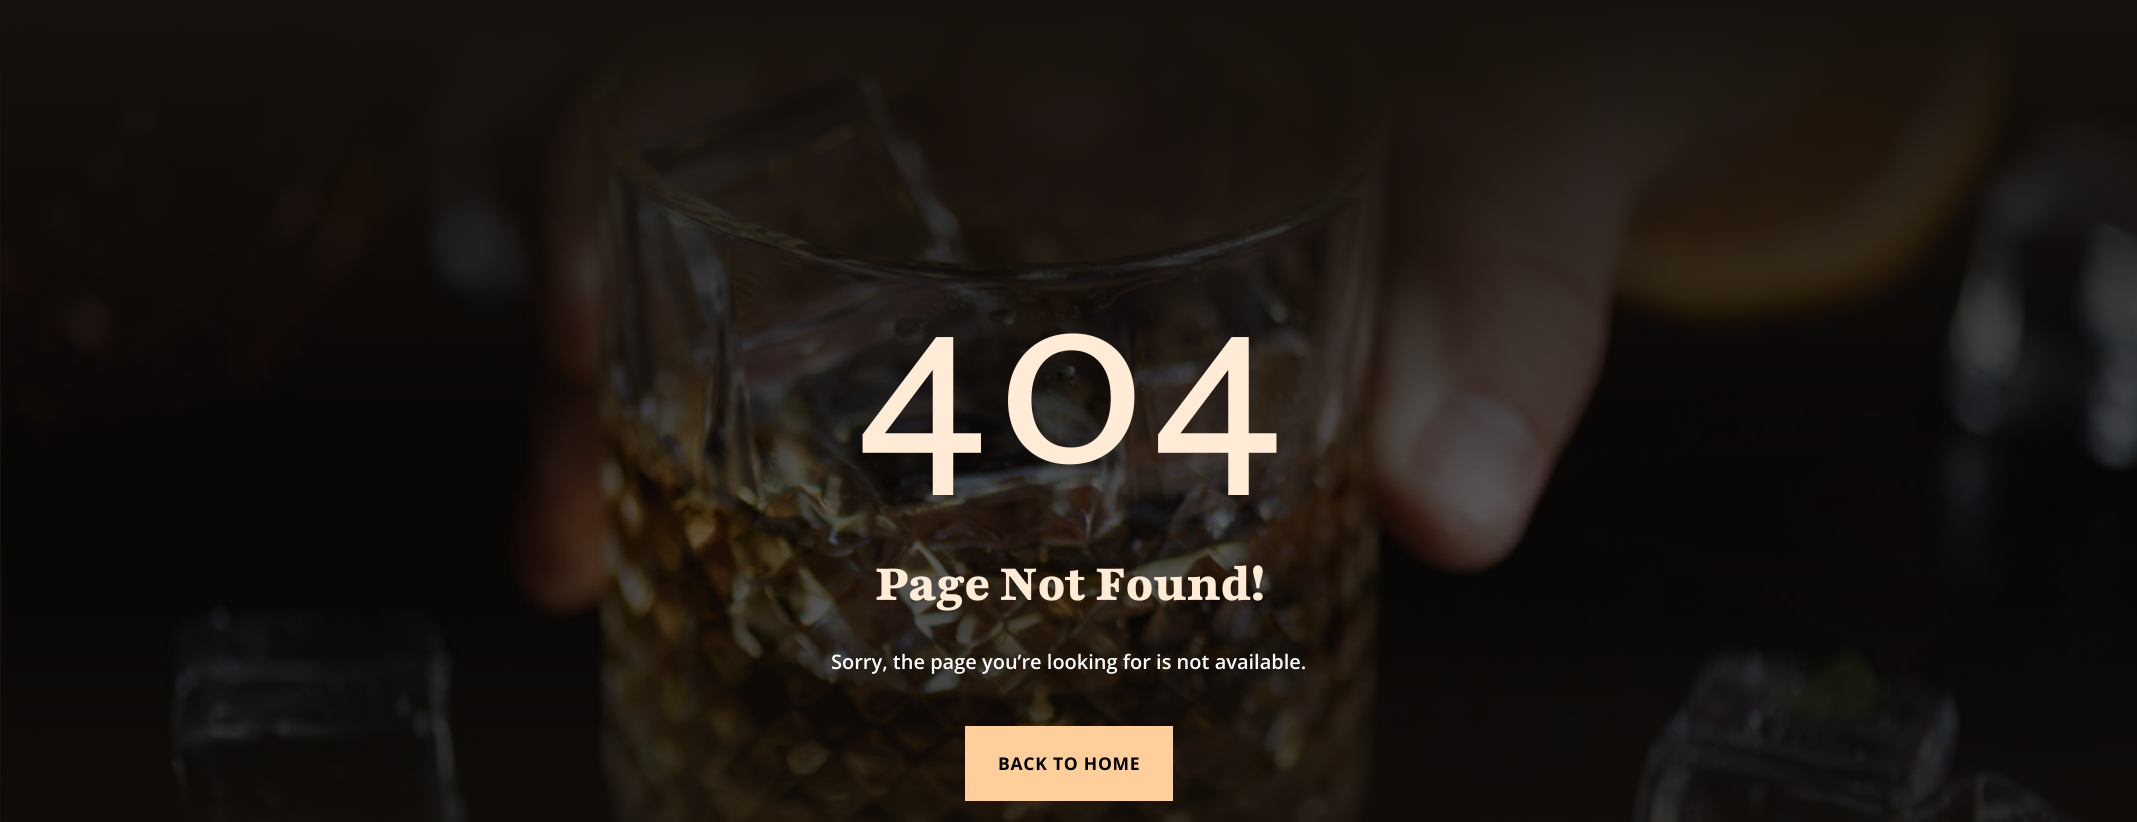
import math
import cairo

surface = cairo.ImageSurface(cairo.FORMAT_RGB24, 2137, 822)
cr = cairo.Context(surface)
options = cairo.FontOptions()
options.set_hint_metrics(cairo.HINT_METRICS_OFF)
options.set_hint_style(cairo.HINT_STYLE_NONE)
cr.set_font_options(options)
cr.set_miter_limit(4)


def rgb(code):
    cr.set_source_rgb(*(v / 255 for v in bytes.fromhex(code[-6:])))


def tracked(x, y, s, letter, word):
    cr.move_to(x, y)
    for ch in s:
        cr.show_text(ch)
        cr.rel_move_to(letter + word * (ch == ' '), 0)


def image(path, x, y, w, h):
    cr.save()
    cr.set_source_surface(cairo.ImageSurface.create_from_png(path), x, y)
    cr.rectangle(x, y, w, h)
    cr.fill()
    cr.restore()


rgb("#ffffff")
cr.paint()
image("img/1.png", 1, 1, 2136, 821)
cr.rectangle(0.5, 0.5, 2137, 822)
rgb("#16110c")
cr.set_line_width(1)
cr.stroke()
rgb("#fecf9a")
cr.rectangle(965, 726, 208, 75)
cr.fill()
cr.select_font_face("Playfair Light")
cr.set_font_size(299)
rgb("#ffebd6")
cr.move_to(858, 461)
cr.show_text("404")
cr.select_font_face("Playfair Black")
cr.set_font_size(55)
tracked(875, 600, "Page Not Found!", 0, -1)
cr.select_font_face("Open Sans SemiBold")
cr.set_font_size(20)
rgb("#ffffff")
cr.move_to(831, 669)
cr.show_text("Sorry, the page you’re looking for is not available.")
cr.select_font_face("Open Sans", cairo.FONT_SLANT_NORMAL, cairo.FONT_WEIGHT_BOLD)
cr.set_font_size(17.5)
rgb("#000000")
tracked(998, 770, "BACK TO HOME", 0.75, 0)
surface.write_to_png("page.png")
